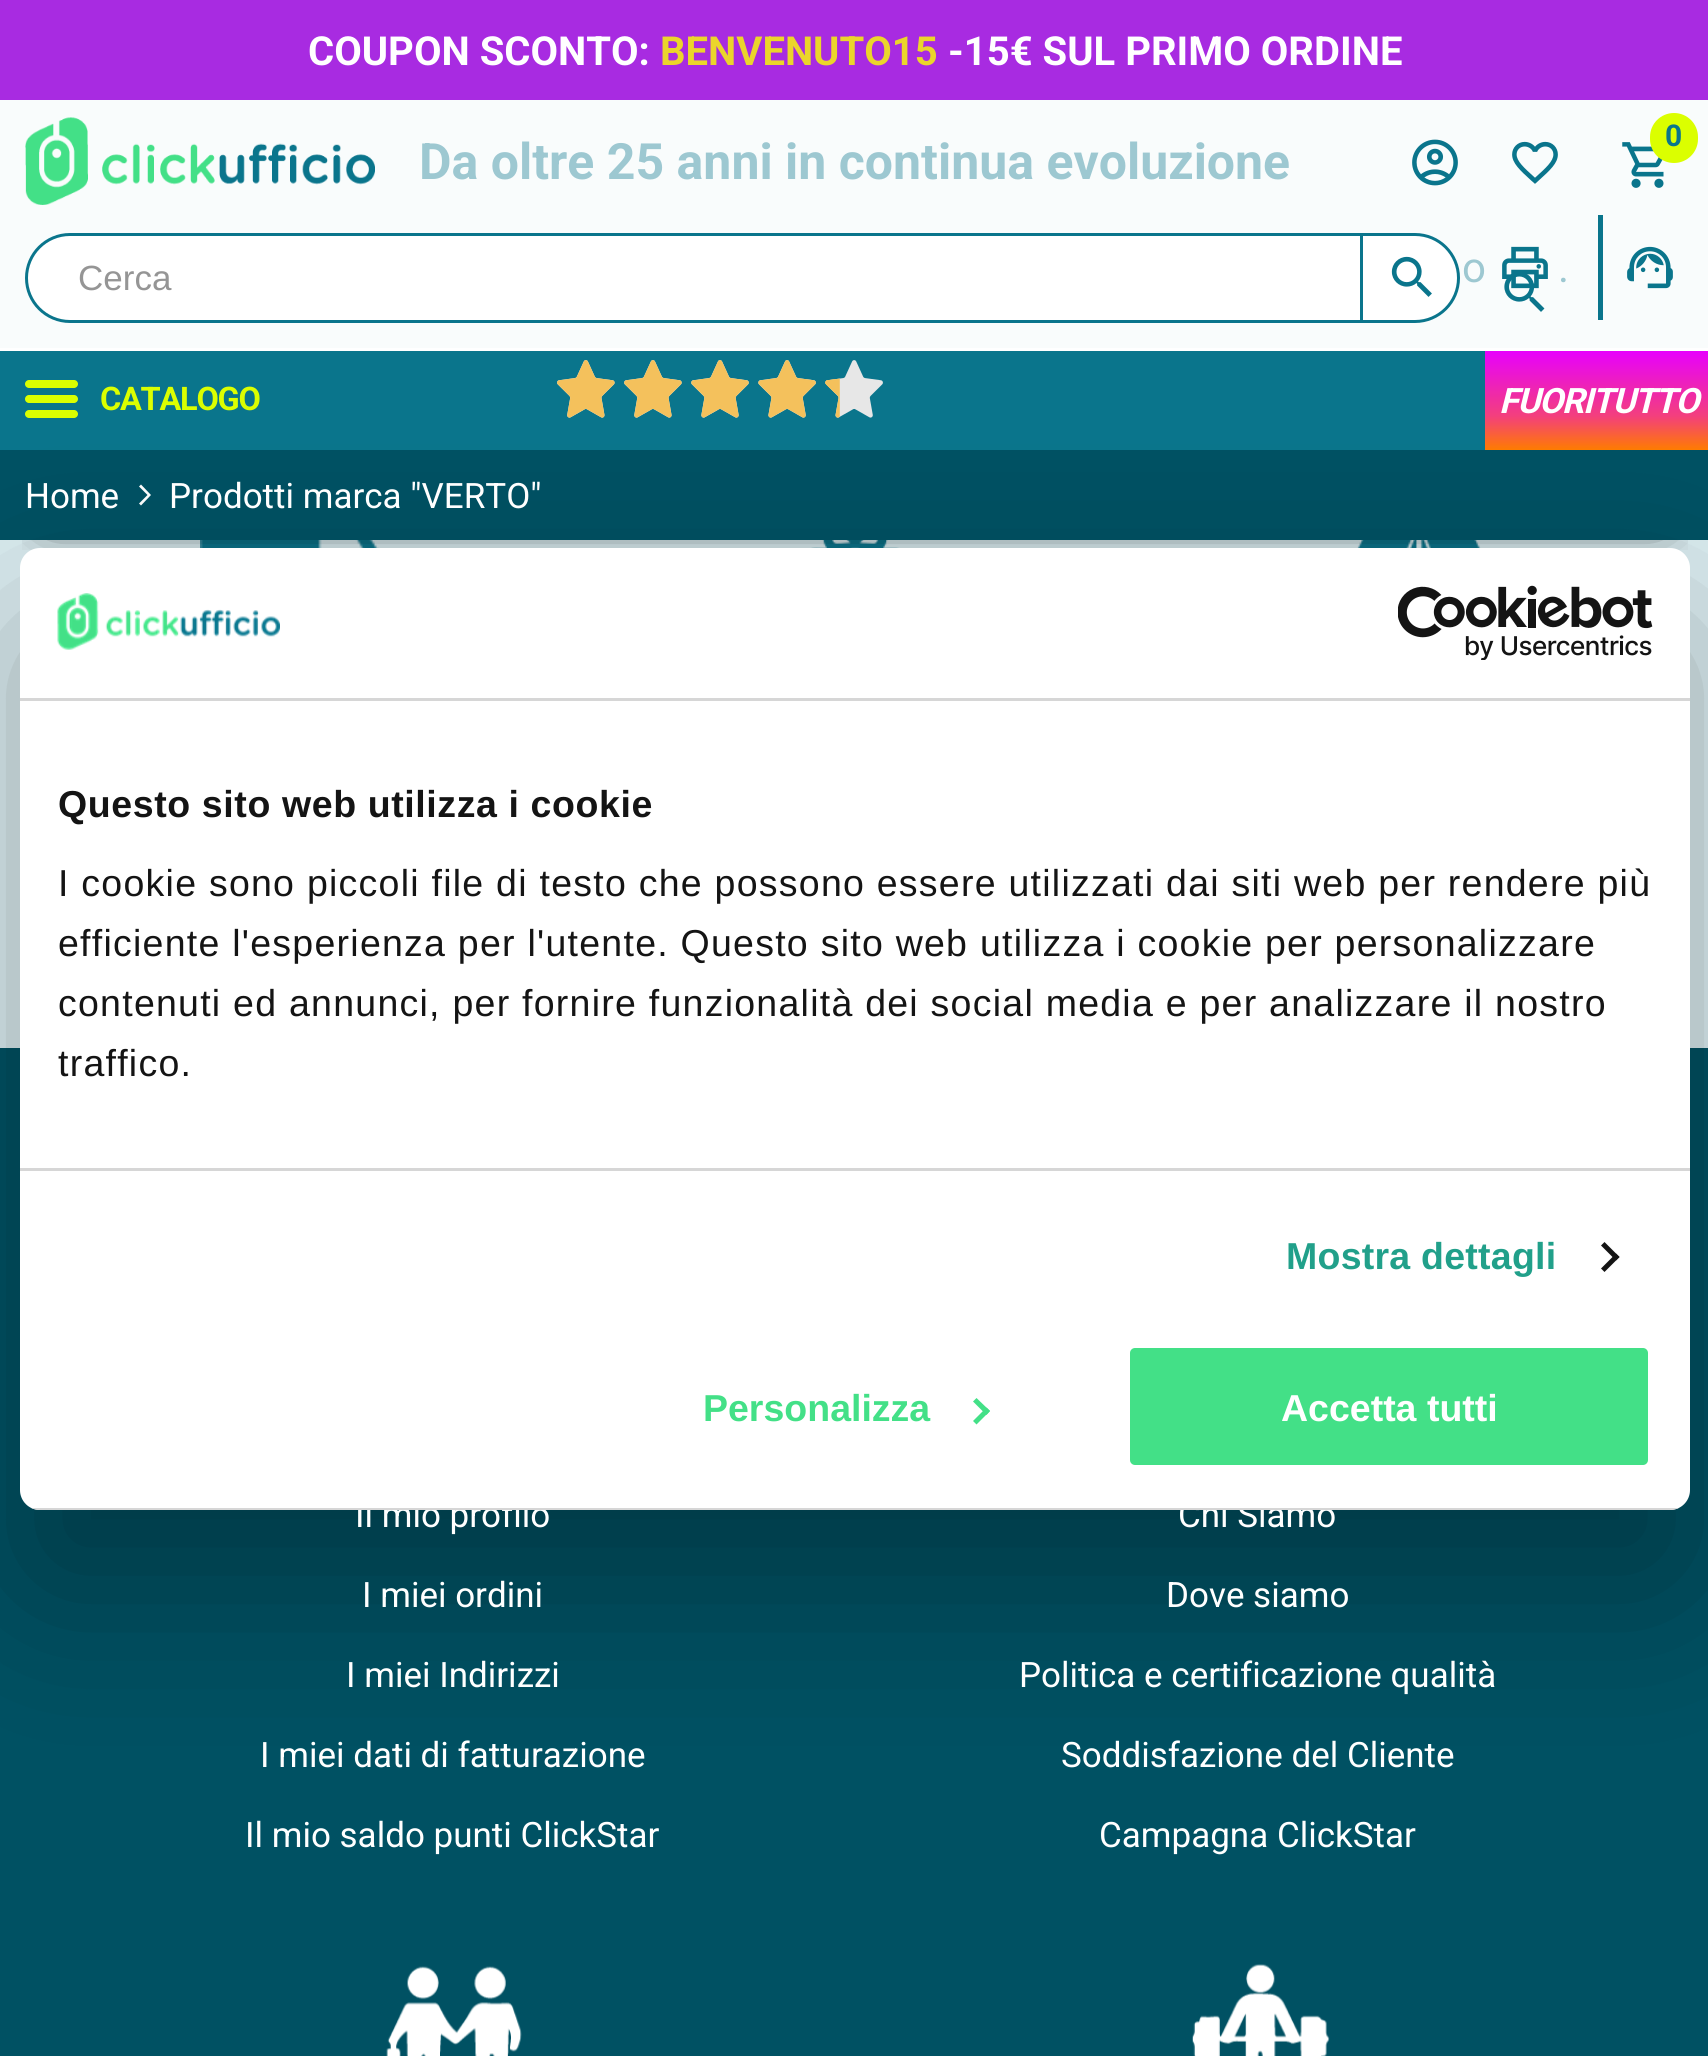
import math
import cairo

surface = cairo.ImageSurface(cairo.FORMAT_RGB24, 1708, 2056)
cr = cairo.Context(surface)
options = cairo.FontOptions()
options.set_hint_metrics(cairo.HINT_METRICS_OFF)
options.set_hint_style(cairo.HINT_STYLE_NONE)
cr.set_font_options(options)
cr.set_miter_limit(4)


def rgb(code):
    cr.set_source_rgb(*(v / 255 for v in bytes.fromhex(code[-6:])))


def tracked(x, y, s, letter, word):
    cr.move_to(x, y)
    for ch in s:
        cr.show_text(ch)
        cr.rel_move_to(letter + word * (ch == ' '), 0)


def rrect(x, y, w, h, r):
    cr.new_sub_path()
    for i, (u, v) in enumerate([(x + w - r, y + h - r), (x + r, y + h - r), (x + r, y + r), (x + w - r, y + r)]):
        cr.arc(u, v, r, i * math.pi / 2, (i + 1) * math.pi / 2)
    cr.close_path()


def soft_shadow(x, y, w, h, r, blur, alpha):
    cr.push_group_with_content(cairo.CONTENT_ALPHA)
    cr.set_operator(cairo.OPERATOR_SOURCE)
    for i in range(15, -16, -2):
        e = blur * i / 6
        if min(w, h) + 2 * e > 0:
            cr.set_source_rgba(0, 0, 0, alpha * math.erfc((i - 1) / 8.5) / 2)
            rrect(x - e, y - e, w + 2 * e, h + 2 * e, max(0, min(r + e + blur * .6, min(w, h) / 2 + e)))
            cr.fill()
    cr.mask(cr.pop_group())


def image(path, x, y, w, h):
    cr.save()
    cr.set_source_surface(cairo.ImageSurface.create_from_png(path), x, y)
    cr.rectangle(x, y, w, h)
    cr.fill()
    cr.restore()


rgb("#f0f7f8")
cr.paint()
rgb("#d9ebef")
cr.rectangle(0, 540, 1708, 508)
cr.fill()
image("img/10.png", 200, 540, 179, 8)
image("img/11.png", 811, 540, 88, 8)
image("img/12.png", 1357, 540, 124, 8)
cr.save()
cr.rectangle(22, 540, 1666, 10)
cr.clip()
rgb("#000000")
soft_shadow(50, 75, 1610, 440, 0, 25, 1)
cr.restore()
for x, y, w, h, color in [
    (0, 0, 1708, 100, "#a82be1"),
    (0, 348, 1708, 3, "#ffffff"),
    (0, 351, 1485, 99, "#0a758c"),
]:
    rgb(color)
    cr.rectangle(x, y, w, h)
    cr.fill()
rgb("#dbff00")
rrect(25, 380, 53, 8, 4)
cr.fill()
rrect(25, 395, 53, 8, 4)
cr.fill()
rrect(25, 410, 53, 8, 4)
cr.fill()
image("img/9.png", 557, 360, 326, 58)
gradient = cairo.LinearGradient(1598, 350, 1598, 450)
gradient.add_color_stop_rgba(0, 0.906, 0, 1, 1)
gradient.add_color_stop_rgba(0.66, 0.953, 0.247, 0.49, 1)
gradient.add_color_stop_rgba(1, 1, 0.486, 0, 1)
cr.set_source(gradient)
cr.rectangle(1485, 351, 223, 99)
cr.fill()
rgb("#005163")
cr.rectangle(0, 450, 1708, 90)
cr.fill()
rgb("#ffffff")
cr.new_path()
cr.move_to(139, 503.5)
cr.line_to(141, 505.5)
cr.line_to(151, 495)
cr.line_to(141, 484.5)
cr.line_to(139, 486.5)
cr.line_to(147.5, 495)
cr.close_path()
cr.fill()
rgb("#005163")
cr.rectangle(0, 1048, 1708, 1008)
cr.fill()
rgb("#000000")
soft_shadow(20, 628, 1670, 962, 20, 85, 0.3)
rgb("#ffffff")
rrect(20, 548, 1670, 962, 20)
cr.fill()
rgb("#d6d6d6")
cr.rectangle(20, 698, 1670, 3)
cr.fill()
image("img/13.png", 57, 593, 223, 57)
image("img/14.png", 1398, 585, 255, 75)
cr.rectangle(20, 1168, 1670, 3)
cr.fill()
rgb("#141414")
cr.new_path()
cr.move_to(1604.5, 1242)
cr.line_to(1619.5, 1257)
cr.line_to(1616, 1260.5)
cr.line_to(1601, 1245.5)
cr.close_path()
cr.fill()
cr.new_path()
cr.move_to(1616, 1253.5)
cr.line_to(1619.5, 1257)
cr.line_to(1604.5, 1272)
cr.line_to(1601, 1268.5)
cr.close_path()
cr.fill()
rgb("#43e087")
cr.new_path()
cr.move_to(976.5, 1398)
cr.line_to(990, 1411)
cr.line_to(986.5, 1415)
cr.line_to(973, 1401.5)
cr.close_path()
cr.fill()
cr.new_path()
cr.move_to(986.5, 1407.5)
cr.line_to(990, 1411)
cr.line_to(976.5, 1424.5)
cr.line_to(973, 1421)
cr.close_path()
cr.fill()
rrect(1127.5, 1345.5, 523, 122, 7.5)
cr.fill_preserve()
rgb("#ffffff")
cr.set_line_width(5)
cr.stroke()
image("img/15.png", 386, 1966, 136, 90)
image("img/16.png", 1192, 1964, 138, 92)
cr.select_font_face("Roboto", cairo.FONT_SLANT_NORMAL, cairo.FONT_WEIGHT_BOLD)
cr.set_font_size(40)
cr.move_to(308, 65)
cr.show_text("COUPON SCONTO:")
rgb("#ebd52b")
cr.move_to(660, 65)
cr.show_text("BENVENUTO15")
rgb("#ffffff")
cr.move_to(948, 65)
cr.show_text("-15€ SUL PRIMO ORDINE")
cr.set_font_size(32.5)
rgb("#dbff00")
tracked(100, 410, "CATALOGO", -1.25, 0)
cr.select_font_face("Roboto", cairo.FONT_SLANT_ITALIC, cairo.FONT_WEIGHT_BOLD)
cr.set_font_size(35)
rgb("#ffffff")
tracked(1499, 413, "FUORITUTTO", -1.25, 0)
cr.select_font_face("Roboto")
cr.move_to(25, 508)
cr.show_text("Home")
cr.move_to(169, 508)
cr.show_text("Prodotti marca \"VERTO\"")
cr.select_font_face("Roboto", cairo.FONT_SLANT_NORMAL, cairo.FONT_WEIGHT_BOLD)
cr.set_font_size(50)
rgb("#0a758c")
cr.move_to(419, 179)
cr.show_text("Da oltre 25 anni in continua evoluzione")
cr.select_font_face("Roboto")
cr.set_font_size(42)
cr.move_to(1462, 282)
cr.show_text("o")
cr.move_to(1558, 282)
cr.show_text(".")
cr.set_source_rgba(1, 1, 1, 0.6)
cr.rectangle(0, 100, 1708, 248)
cr.fill()
image("img/1.png", 25, 117, 350, 88)
image("img/2.png", 1622, 142, 42, 46)
rgb("#dbff00")
rrect(1650, 113, 48, 50, 24)
cr.fill()
cr.select_font_face("Roboto", cairo.FONT_SLANT_NORMAL, cairo.FONT_WEIGHT_BOLD)
cr.set_font_size(30)
rgb("#0a758c")
cr.move_to(1665, 146)
cr.show_text("0")
image("img/4.png", 1512, 141, 46, 43)
image("img/3.png", 1412, 139, 46, 47)
image("img/7.png", 1627, 246, 46, 43)
cr.rectangle(1598, 215, 5, 105)
cr.fill()
image("img/5.png", 1502, 246, 46, 43)
image("img/6.png", 1504, 274, 41, 38)
rgb("#ffffff")
rrect(26.5, 234.5, 1432, 87, 43.5)
cr.fill_preserve()
rgb("#0a758c")
cr.set_line_width(3)
cr.stroke()
image("img/8.png", 1391, 256, 41, 41)
cr.rectangle(1360, 233, 3, 87)
cr.fill()
cr.select_font_face("Liberation Sans")
cr.set_font_size(35)
rgb("#959595")
cr.move_to(78, 290)
cr.show_text("Cerca")
cr.select_font_face("Liberation Sans", cairo.FONT_SLANT_NORMAL, cairo.FONT_WEIGHT_BOLD)
cr.set_font_size(37.5)
rgb("#141414")
tracked(58, 817, "Questo sito web utilizza i cookie", 0.6, 0)
cr.select_font_face("Liberation Sans")
for x, y, s in [
    (58, 896, "I cookie sono piccoli file di testo che possono essere utilizzati dai siti web per rendere più"),
    (58, 956, "efficiente l'esperienza per l'utente. Questo sito web utilizza i cookie per personalizzare"),
    (58, 1016, "contenuti ed annunci, per fornire funzionalità dei social media e per analizzare il nostro"),
    (58, 1076, "traffico."),
]:
    tracked(x, y, s, 1.25, 0)
cr.select_font_face("Liberation Sans", cairo.FONT_SLANT_NORMAL, cairo.FONT_WEIGHT_BOLD)
rgb("#21a08a")
tracked(1286, 1269, "Mostra dettagli", 0.25, 0)
rgb("#43e087")
cr.move_to(703, 1421)
cr.show_text("Personalizza")
rgb("#ffffff")
cr.move_to(1281, 1421)
cr.show_text("Accetta tutti")
cr.select_font_face("Roboto")
cr.set_font_size(35)
for x, y, s in [
    (355, 1527, "Il mio profilo"),
    (362, 1607, "I miei ordini"),
    (346, 1687, "I miei Indirizzi"),
    (260, 1767, "I miei dati di fatturazione"),
    (245, 1847, "Il mio saldo punti ClickStar"),
    (1178, 1527, "Chi Siamo"),
]:
    cr.move_to(x, y)
    cr.show_text(s)
cr.save()
rrect(20, 548, 1670, 962, 20)
cr.clip()
rgb("#d6d6d6")
cr.rectangle(31, 1508, 1648, 2)
cr.fill()
cr.restore()
for x, y, s in [
    (1166, 1607, "Dove siamo"),
    (1019, 1687, "Politica e certificazione qualità"),
    (1061, 1767, "Soddisfazione del Cliente"),
    (1099, 1847, "Campagna ClickStar"),
]:
    cr.move_to(x, y)
    cr.show_text(s)
surface.write_to_png("page.png")
